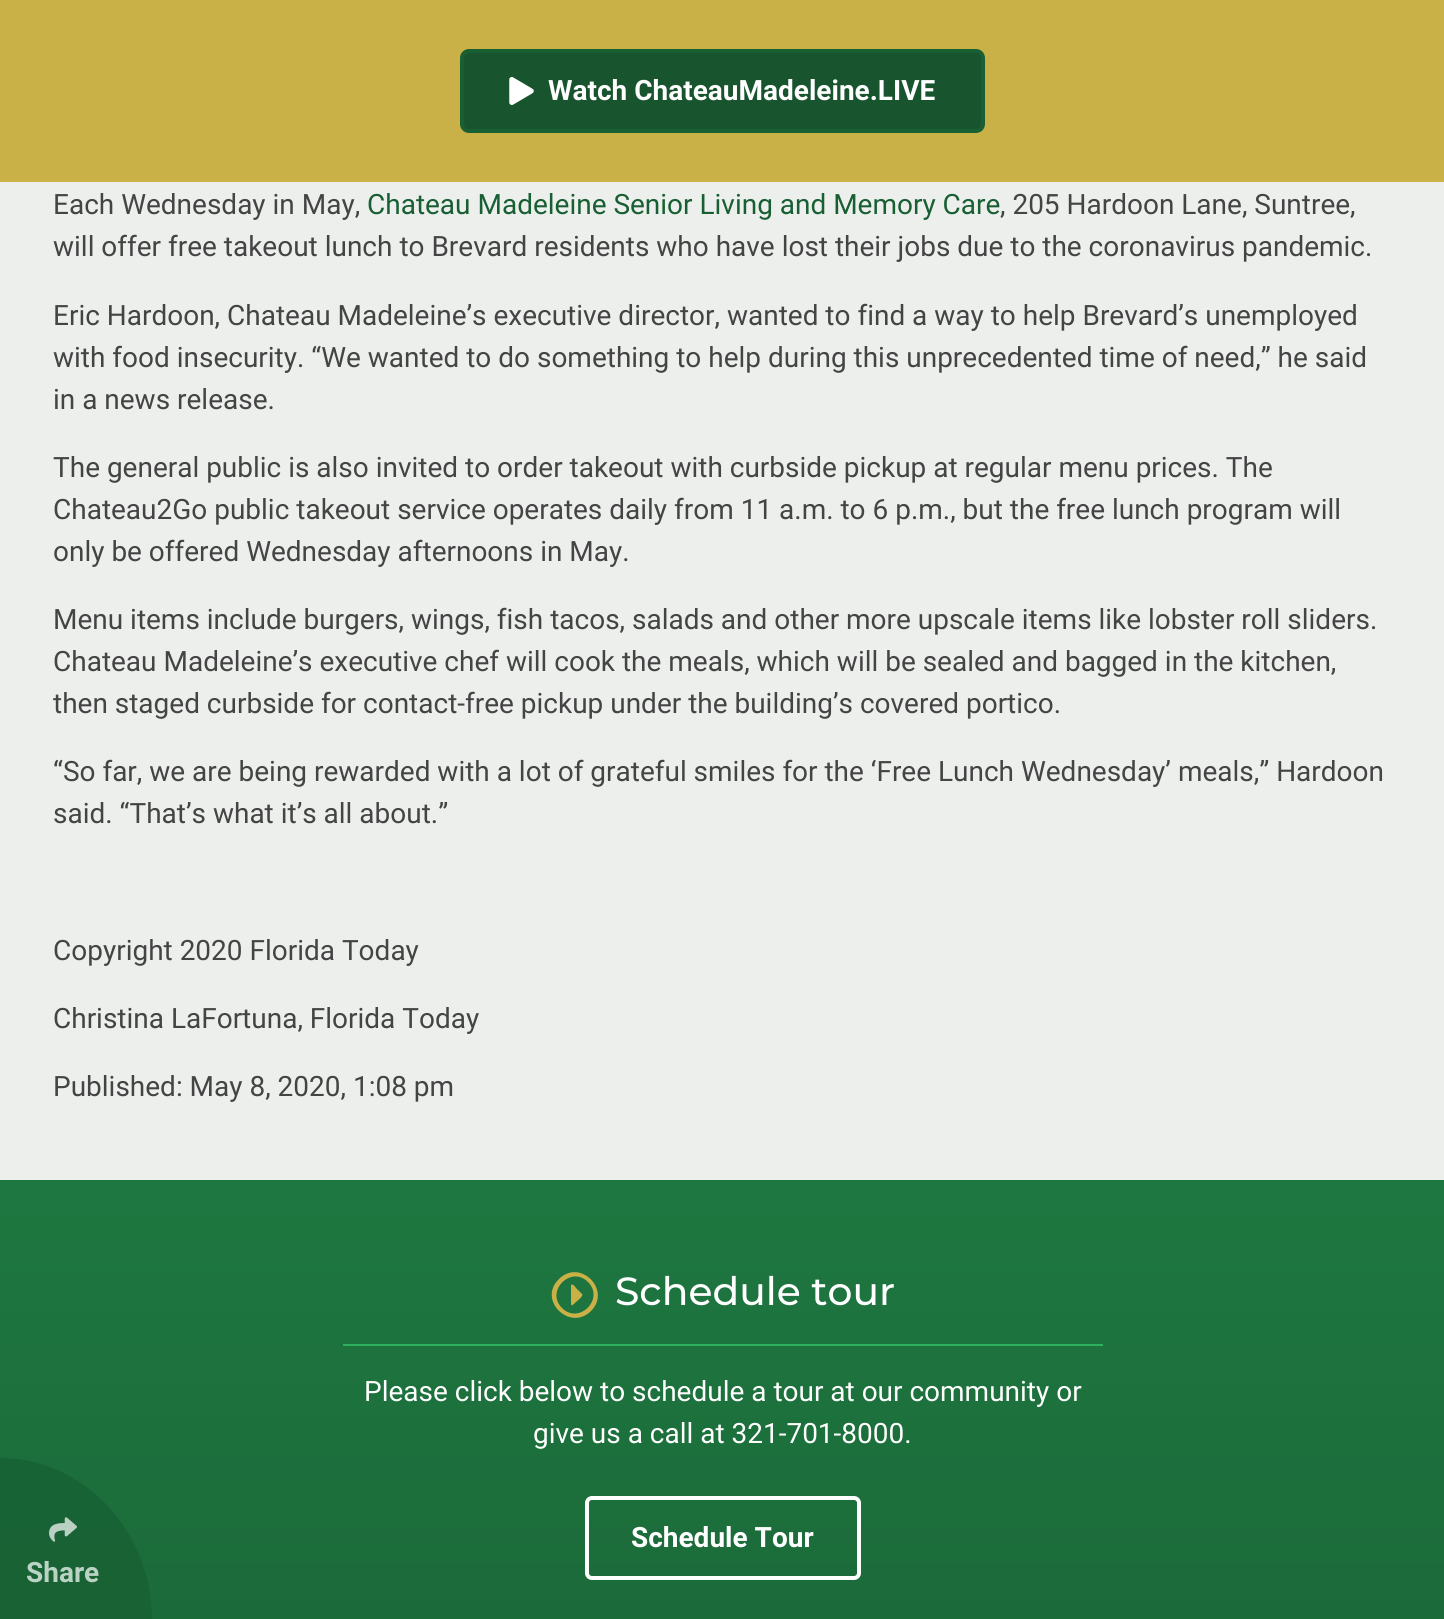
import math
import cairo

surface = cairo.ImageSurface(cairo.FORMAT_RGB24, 1444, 1619)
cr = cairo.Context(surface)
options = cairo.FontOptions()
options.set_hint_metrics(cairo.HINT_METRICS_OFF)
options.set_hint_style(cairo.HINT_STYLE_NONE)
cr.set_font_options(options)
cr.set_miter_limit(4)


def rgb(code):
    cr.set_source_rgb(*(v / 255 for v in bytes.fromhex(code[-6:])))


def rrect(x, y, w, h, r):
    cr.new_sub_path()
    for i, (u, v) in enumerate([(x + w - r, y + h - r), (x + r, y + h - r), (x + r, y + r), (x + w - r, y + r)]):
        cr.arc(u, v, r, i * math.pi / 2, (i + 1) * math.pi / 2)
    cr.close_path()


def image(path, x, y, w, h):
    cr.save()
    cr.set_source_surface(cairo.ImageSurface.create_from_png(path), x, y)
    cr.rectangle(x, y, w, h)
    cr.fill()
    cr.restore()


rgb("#edefed")
cr.paint()
rgb("#cab147")
cr.rectangle(0, 0, 1444, 182)
cr.fill()
rgb("#18542e")
rrect(462, 51, 521, 80, 7)
cr.fill_preserve()
rgb("#185f33")
cr.set_line_width(4)
cr.stroke()
image("img/1.png", 509, 77, 25, 28)
gradient = cairo.LinearGradient(723, 1180, 723, 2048)
gradient.add_color_stop_rgba(0, 0.118, 0.467, 0.251, 1)
gradient.add_color_stop_rgba(1, 0.094, 0.373, 0.2, 1)
cr.set_source(gradient)
cr.rectangle(0, 1180, 1444, 439)
cr.fill()
rgb("#2db05f")
cr.rectangle(343, 1344, 760, 2)
cr.fill()
rgb("#cab147")
cr.new_path()
cr.move_to(571, 1304)
cr.line_to(571, 1285)
cr.curve_to(573, 1283, 576, 1288, 576, 1288)
cr.line_to(582, 1294)
cr.curve_to(584, 1296, 577, 1301, 576, 1302)
cr.curve_to(574, 1304, 571, 1307, 571, 1304)
cr.close_path()
cr.move_to(559, 1279)
cr.curve_to(580, 1258, 612, 1290, 591, 1311)
cr.curve_to(570, 1332, 537, 1300, 559, 1279)
cr.close_path()
cr.move_to(588, 1282)
cr.curve_to(571, 1265, 545, 1291, 562, 1308)
cr.curve_to(579, 1325, 605, 1299, 588, 1282)
cr.close_path()
cr.fill()
rrect(587, 1498, 272, 80, 5)
rgb("#ffffff")
cr.stroke()
cr.set_source_rgba(0.094, 0.373, 0.2, 0.7)
cr.new_path()
cr.move_to(0, 1458)
cr.curve_to(84, 1458, 152, 1531, 152, 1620)
cr.line_to(0, 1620)
cr.close_path()
cr.fill()
image("img/2.png", 49, 1517, 28, 25)
cr.select_font_face("Roboto", cairo.FONT_SLANT_NORMAL, cairo.FONT_WEIGHT_BOLD)
cr.set_font_size(28)
rgb("#ffffff")
cr.move_to(548, 100)
cr.show_text("Watch ChateauMadeleine.LIVE")
cr.select_font_face("Roboto")
rgb("#444444")
cr.move_to(53, 214)
cr.show_text("Each Wednesday in May,")
rgb("#185f33")
cr.move_to(367, 214)
cr.show_text("Chateau Madeleine Senior Living and Memory Care")
rgb("#444444")
for x, y, s in [
    (1000, 214, ", 205 Hardoon Lane, Suntree,"),
    (53, 256, "will offer free takeout lunch to Brevard residents who have lost their jobs due to the coronavirus pandemic."),
    (53, 325, "Eric Hardoon, Chateau Madeleine’s executive director, wanted to find a way to help Brevard’s unemployed"),
    (53, 367, "with food insecurity. “We wanted to do something to help during this unprecedented time of need,” he said"),
    (53, 409, "in a news release."),
    (53, 477, "The general public is also invited to order takeout with curbside pickup at regular menu prices. The"),
    (53, 519, "Chateau2Go public takeout service operates daily from 11 a.m. to 6 p.m., but the free lunch program will"),
    (53, 561, "only be offered Wednesday afternoons in May."),
    (53, 629, "Menu items include burgers, wings, fish tacos, salads and other more upscale items like lobster roll sliders."),
    (53, 671, "Chateau Madeleine’s executive chef will cook the meals, which will be sealed and bagged in the kitchen,"),
    (53, 713, "then staged curbside for contact-free pickup under the building’s covered portico."),
    (53, 781, "“So far, we are being rewarded with a lot of grateful smiles for the ‘Free Lunch Wednesday’ meals,” Hardoon"),
    (53, 823, "said. “That’s what it’s all about.”"),
    (53, 960, "Copyright 2020 Florida Today"),
    (53, 1028, "Christina LaFortuna, Florida Today"),
    (53, 1096, "Published: May 8, 2020, 1:08 pm"),
]:
    cr.move_to(x, y)
    cr.show_text(s)
cr.select_font_face("Montserrat Medium")
cr.set_font_size(39.25)
rgb("#ffffff")
cr.move_to(615, 1305)
cr.show_text("Schedule tour")
cr.select_font_face("Roboto")
cr.set_font_size(28)
cr.move_to(364, 1401)
cr.show_text("Please click below to schedule a tour at our community or")
cr.move_to(533, 1443)
cr.show_text("give us a call at 321-701-8000.")
cr.select_font_face("Roboto", cairo.FONT_SLANT_NORMAL, cairo.FONT_WEIGHT_BOLD)
cr.move_to(631, 1547)
cr.show_text("Schedule Tour")
rgb("#bbd3c4")
cr.move_to(26, 1582)
cr.show_text("Share")
surface.write_to_png("page.png")
